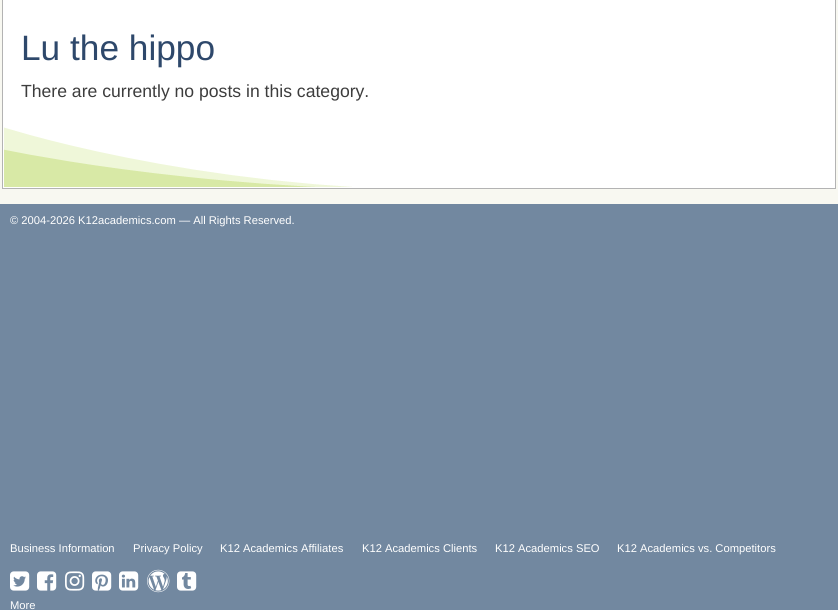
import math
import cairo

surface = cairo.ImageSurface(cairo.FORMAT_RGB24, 838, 610)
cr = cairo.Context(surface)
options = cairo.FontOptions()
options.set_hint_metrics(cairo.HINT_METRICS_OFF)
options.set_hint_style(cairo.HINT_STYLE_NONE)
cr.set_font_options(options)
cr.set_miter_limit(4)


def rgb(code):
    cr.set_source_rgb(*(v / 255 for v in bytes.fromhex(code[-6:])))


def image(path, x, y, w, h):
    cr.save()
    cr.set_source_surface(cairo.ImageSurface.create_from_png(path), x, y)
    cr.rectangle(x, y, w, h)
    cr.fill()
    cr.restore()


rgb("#f8f8f1")
cr.paint()
rgb("#ffffff")
cr.rectangle(3, 0, 832, 188)
cr.fill()
image("img/1.png", 4, 127, 348, 60)
cr.rectangle(2.5, -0.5, 833, 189)
rgb("#b3b3b3")
cr.set_line_width(1)
cr.stroke()
rgb("#7288a0")
cr.rectangle(0, 204, 838, 406)
cr.fill()
image("img/2.png", 10, 571, 20, 20)
image("img/3.png", 37, 571, 20, 20)
image("img/4.png", 65, 571, 20, 20)
image("img/5.png", 92, 571, 20, 20)
image("img/6.png", 119, 571, 20, 20)
image("img/7.png", 147, 569, 23, 24)
image("img/8.png", 177, 571, 20, 20)
cr.select_font_face("Liberation Sans")
cr.set_font_size(35.25)
rgb("#2e486b")
cr.move_to(21, 60)
cr.show_text("Lu the hippo")
cr.set_font_size(17.6)
rgb("#3d3d3d")
cr.move_to(21, 97)
cr.show_text("There are currently no posts in this category.")
cr.set_font_size(11.2)
rgb("#ffffff")
for x, y, s in [
    (10, 224, "© 2004-2026 K12academics.com — All Rights Reserved."),
    (10, 552, "Business Information"),
    (133, 552, "Privacy Policy"),
    (220, 552, "K12 Academics Affiliates"),
    (362, 552, "K12 Academics Clients"),
    (495, 552, "K12 Academics SEO"),
    (617, 552, "K12 Academics vs. Competitors"),
    (10, 609, "More"),
]:
    cr.move_to(x, y)
    cr.show_text(s)
surface.write_to_png("page.png")
